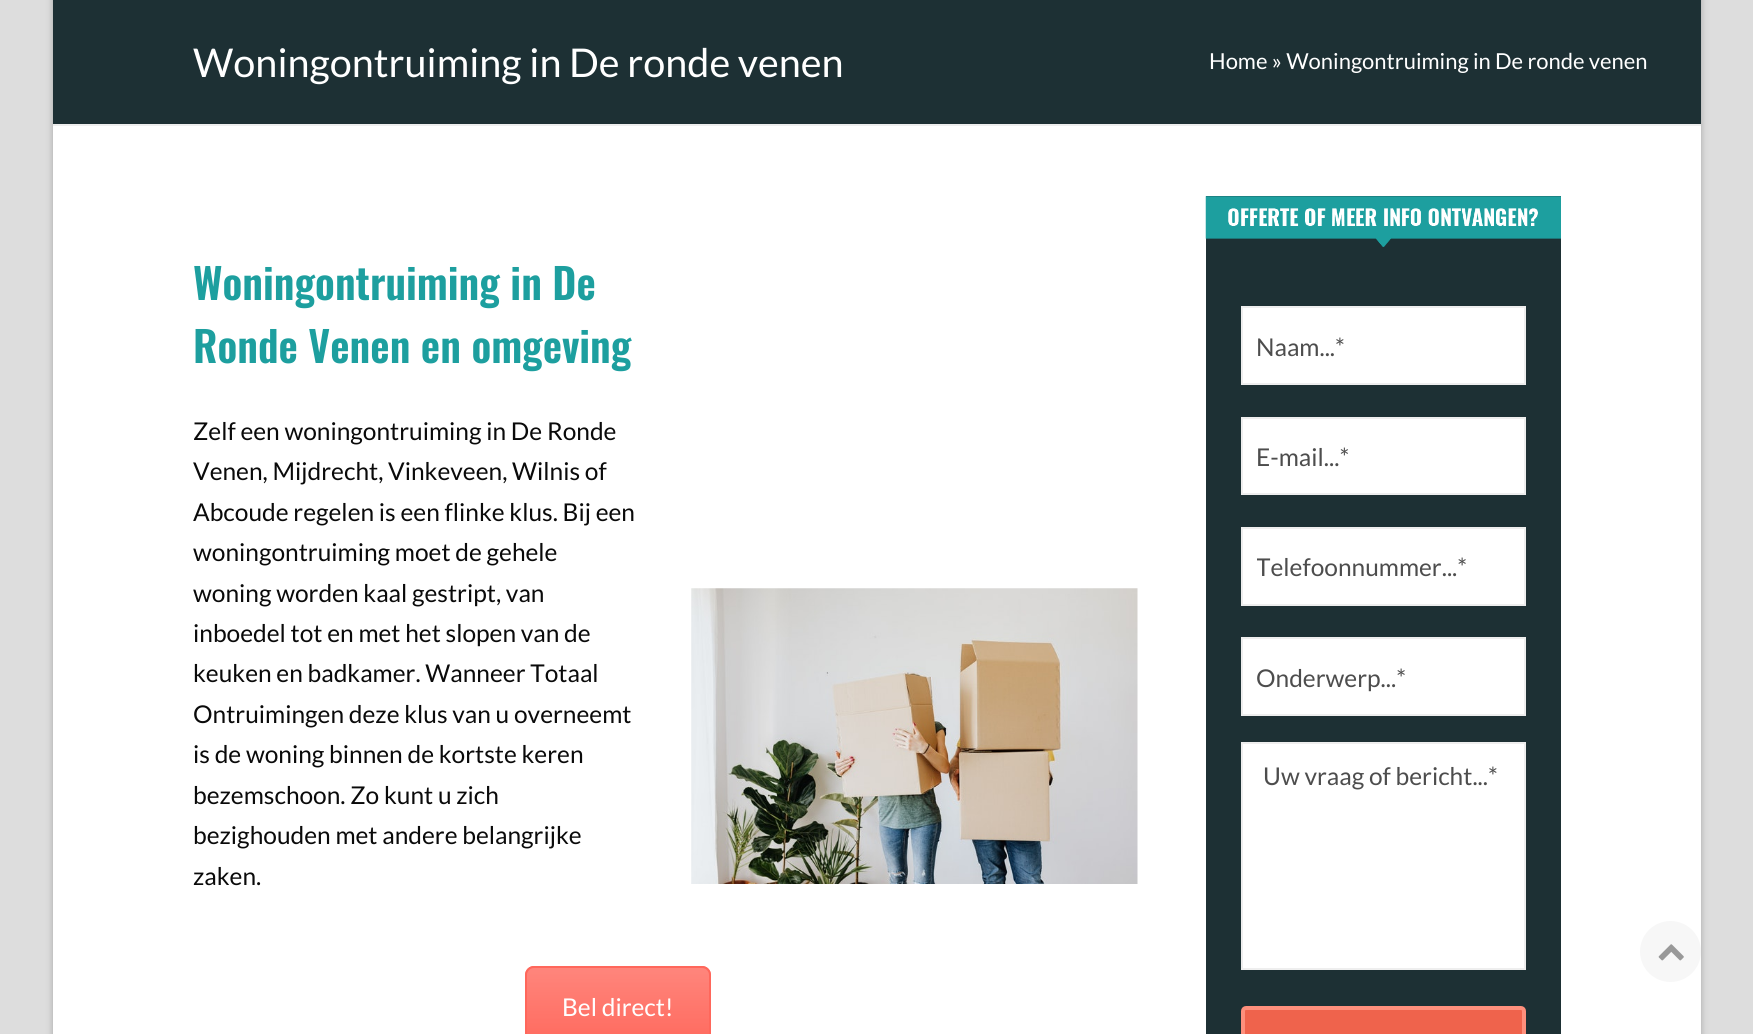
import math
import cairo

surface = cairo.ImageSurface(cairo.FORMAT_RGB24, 1753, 1034)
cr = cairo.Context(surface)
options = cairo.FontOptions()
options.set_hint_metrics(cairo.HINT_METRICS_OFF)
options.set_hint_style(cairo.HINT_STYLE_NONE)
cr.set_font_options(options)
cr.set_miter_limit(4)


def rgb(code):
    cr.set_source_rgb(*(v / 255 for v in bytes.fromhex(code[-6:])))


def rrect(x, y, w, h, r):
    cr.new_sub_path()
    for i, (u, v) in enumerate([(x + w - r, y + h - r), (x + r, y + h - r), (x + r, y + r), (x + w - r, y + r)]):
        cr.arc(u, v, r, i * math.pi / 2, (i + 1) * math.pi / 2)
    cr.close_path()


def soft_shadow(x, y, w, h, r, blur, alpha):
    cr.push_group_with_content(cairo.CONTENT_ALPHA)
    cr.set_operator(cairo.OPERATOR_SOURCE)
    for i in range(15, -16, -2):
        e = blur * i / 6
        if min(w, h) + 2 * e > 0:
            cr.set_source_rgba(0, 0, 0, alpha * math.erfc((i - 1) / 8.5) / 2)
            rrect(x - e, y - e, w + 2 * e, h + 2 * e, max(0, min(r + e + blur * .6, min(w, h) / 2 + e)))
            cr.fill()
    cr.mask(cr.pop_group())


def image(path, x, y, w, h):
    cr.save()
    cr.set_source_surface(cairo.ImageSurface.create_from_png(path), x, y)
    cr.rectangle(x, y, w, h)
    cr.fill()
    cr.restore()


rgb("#dddddd")
cr.paint()
rgb("#000000")
soft_shadow(53, -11, 1648, 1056, 0, 3.5, 0.25)
for x, y, w, h, color in [
    (53, 126, 1648, 908, "#ffffff"),
    (53, 0, 1648, 124, "#1d3034"),
    (53, 124, 1648, 2, "#eeeeee"),
]:
    rgb(color)
    cr.rectangle(x, y, w, h)
    cr.fill()
image("img/1.png", 691, 588, 447, 296)
rgb("#ff675b")
rrect(525, 966, 186, 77, 9)
cr.fill()
cr.save()
rrect(525, 966, 186, 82, 9)
cr.clip()
gradient = cairo.LinearGradient(618, 968, 618, 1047)
gradient.add_color_stop_rgba(0, 1, 1, 1, 0.2)
gradient.add_color_stop_rgba(1, 1, 1, 1, 0.01)
cr.set_source(gradient)
cr.rectangle(525, 968, 186, 66)
cr.fill()
cr.restore()
rrect(526, 967, 184, 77, 8)
cr.stroke()
rgb("#1d3034")
cr.rectangle(1206, 196, 355, 838)
cr.fill()
image("img/2.png", 1205, 196, 356, 51)
rgb("#ffffff")
cr.rectangle(1242, 307, 283, 77)
cr.fill_preserve()
rgb("#eeeeee")
cr.stroke()
rgb("#ffffff")
cr.rectangle(1242, 418, 283, 76)
cr.fill_preserve()
rgb("#eeeeee")
cr.stroke()
rgb("#ffffff")
cr.rectangle(1242, 528, 283, 77)
cr.fill_preserve()
rgb("#eeeeee")
cr.stroke()
rgb("#ffffff")
cr.rectangle(1242, 638, 283, 77)
cr.fill_preserve()
rgb("#eeeeee")
cr.stroke()
rgb("#ffffff")
cr.rectangle(1242, 743, 283, 226)
cr.fill_preserve()
rgb("#eeeeee")
cr.stroke()
rgb("#ef634c")
rrect(1243, 1008, 281, 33, 3)
cr.fill_preserve()
rgb("#fe8f7c")
cr.set_line_width(4)
cr.stroke()
rgb("#f7f7f7")
cr.arc(1670.5, 951.5, 30.5, 0, 2 * math.pi)
cr.fill()
image("img/3.png", 1658, 944, 26, 17)
cr.select_font_face("Lato")
cr.set_font_size(39.6)
rgb("#ffffff")
cr.move_to(193, 77)
cr.show_text("Woningontruiming in De ronde venen")
cr.set_font_size(22)
cr.move_to(1209, 69)
cr.show_text("Home » Woningontruiming in De ronde venen")
cr.select_font_face("Oswald SemiBold")
cr.set_font_size(42)
rgb("#1d9f9f")
cr.move_to(193, 300)
cr.show_text("Woningontruiming in De")
cr.move_to(193, 363)
cr.show_text("Ronde Venen en omgeving")
cr.select_font_face("Lato")
cr.set_font_size(24.5)
rgb("#0a0a0a")
for x, y, s in [
    (193, 440, "Zelf een woningontruiming in De Ronde"),
    (193, 480, "Venen, Mijdrecht, Vinkeveen, Wilnis of"),
    (193, 521, "Abcoude regelen is een flinke klus. Bij een"),
    (193, 561, "woningontruiming moet de gehele"),
    (193, 602, "woning worden kaal gestript, van"),
    (193, 642, "inboedel tot en met het slopen van de"),
    (193, 682, "keuken en badkamer. Wanneer Totaal"),
    (193, 723, "Ontruimingen deze klus van u overneemt"),
    (193, 763, "is de woning binnen de kortste keren"),
    (193, 804, "bezemschoon. Zo kunt u zich"),
    (193, 844, "bezighouden met andere belangrijke"),
    (193, 885, "zaken."),
]:
    cr.move_to(x, y)
    cr.show_text(s)
rgb("#ffffff")
cr.move_to(562, 1016)
cr.show_text("Bel direct!")
rgb("#4d4d4d")
cr.move_to(1256, 356)
cr.show_text("Naam...*")
cr.move_to(1256, 466)
cr.show_text("E-mail...*")
cr.save()
cr.rectangle(1257, 551, 253, 30)
cr.clip()
cr.move_to(1256, 576)
cr.show_text("Telefoonnummer...*")
cr.restore()
cr.move_to(1256, 687)
cr.show_text("Onderwerp...*")
cr.move_to(1263, 785)
cr.show_text("Uw vraag of bericht...*")
surface.write_to_png("page.png")
